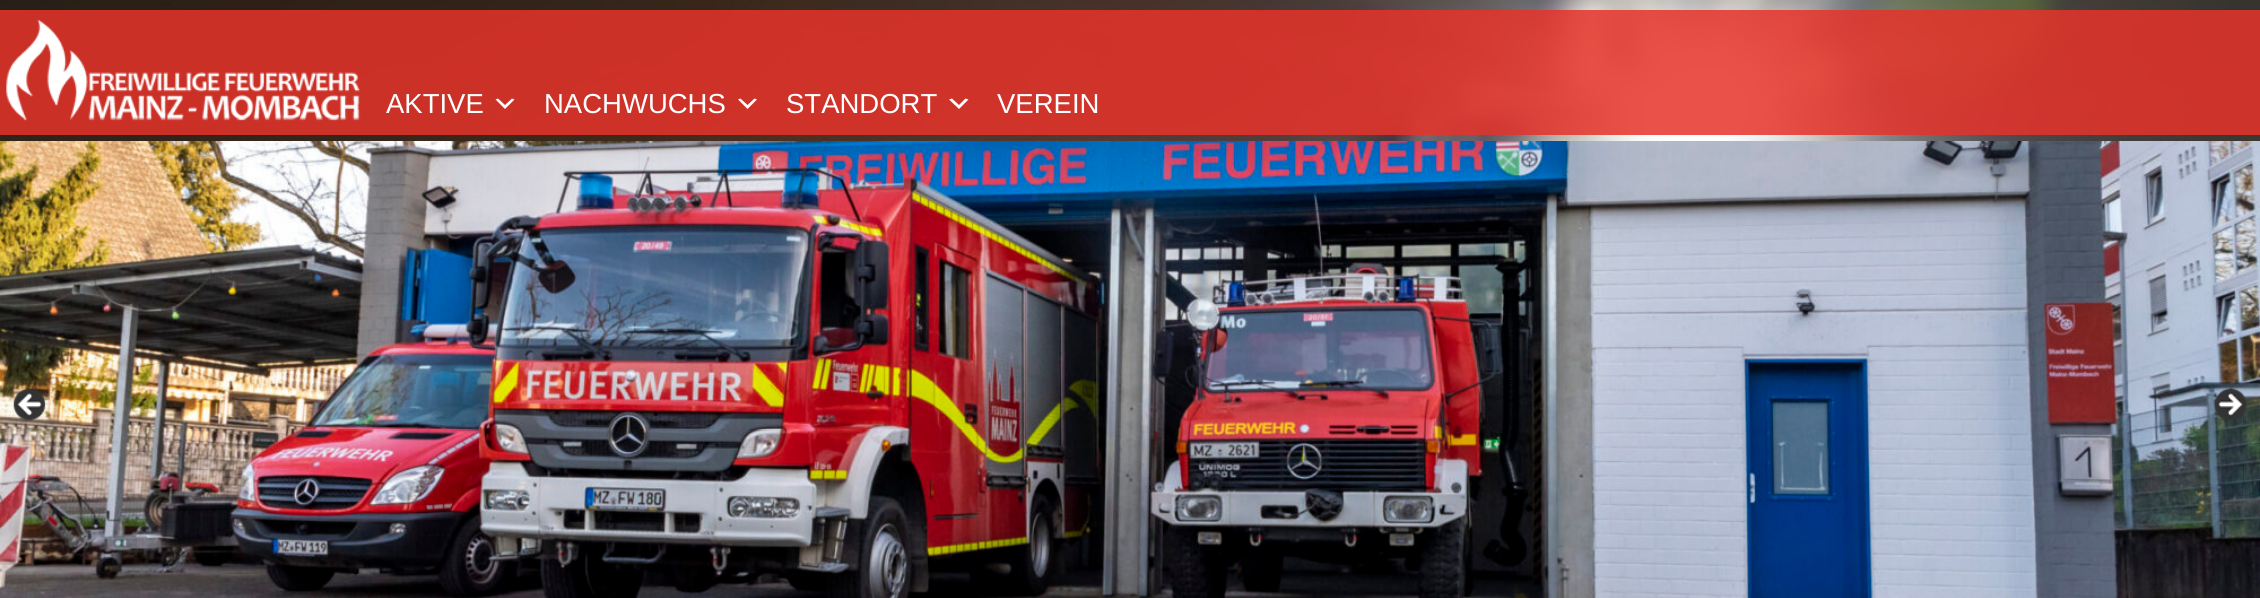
import math
import cairo

surface = cairo.ImageSurface(cairo.FORMAT_RGB24, 2260, 598)
cr = cairo.Context(surface)
options = cairo.FontOptions()
options.set_hint_metrics(cairo.HINT_METRICS_OFF)
options.set_hint_style(cairo.HINT_STYLE_NONE)
cr.set_font_options(options)
cr.set_miter_limit(4)


def rgb(code):
    cr.set_source_rgb(*(v / 255 for v in bytes.fromhex(code[-6:])))


def image(path, x, y, w, h):
    cr.save()
    cr.set_source_surface(cairo.ImageSurface.create_from_png(path), x, y)
    cr.rectangle(x, y, w, h)
    cr.fill()
    cr.restore()


rgb("#ffffff")
cr.paint()
image("img/1.png", 0, 0, 2260, 141)
cr.set_source_rgba(0.902, 0.2, 0.165, 0.85)
cr.rectangle(0, 10, 2260, 125)
cr.fill()
image("img/2.png", 6, 19, 355, 102)
rgb("#ffffff")
cr.new_path()
cr.move_to(498, 98.5)
cr.line_to(505, 105)
cr.line_to(512, 98.5)
cr.line_to(514.5, 99.5)
cr.line_to(505, 109)
cr.line_to(495.5, 99.5)
cr.close_path()
cr.fill()
cr.new_path()
cr.move_to(740.5, 98.5)
cr.line_to(747.5, 105)
cr.line_to(754.5, 98.5)
cr.line_to(757, 99.5)
cr.line_to(747.5, 109)
cr.line_to(738, 99.5)
cr.close_path()
cr.fill()
cr.new_path()
cr.move_to(952, 98.5)
cr.line_to(959, 105)
cr.line_to(965.5, 98.5)
cr.line_to(968.5, 99.5)
cr.line_to(959, 109)
cr.line_to(949, 99.5)
cr.close_path()
cr.fill()
image("img/3.png", 0, 141, 2260, 457)
image("img/4.png", 13, 388, 33, 33)
image("img/5.png", 2214, 388, 33, 32)
cr.select_font_face("Liberation Sans")
cr.set_font_size(27.5)
for x, y, s in [
    (386, 113, "AKTIVE"),
    (544, 113, "NACHWUCHS"),
    (786, 113, "STANDORT"),
    (997, 113, "VEREIN"),
]:
    cr.move_to(x, y)
    cr.show_text(s)
surface.write_to_png("page.png")
